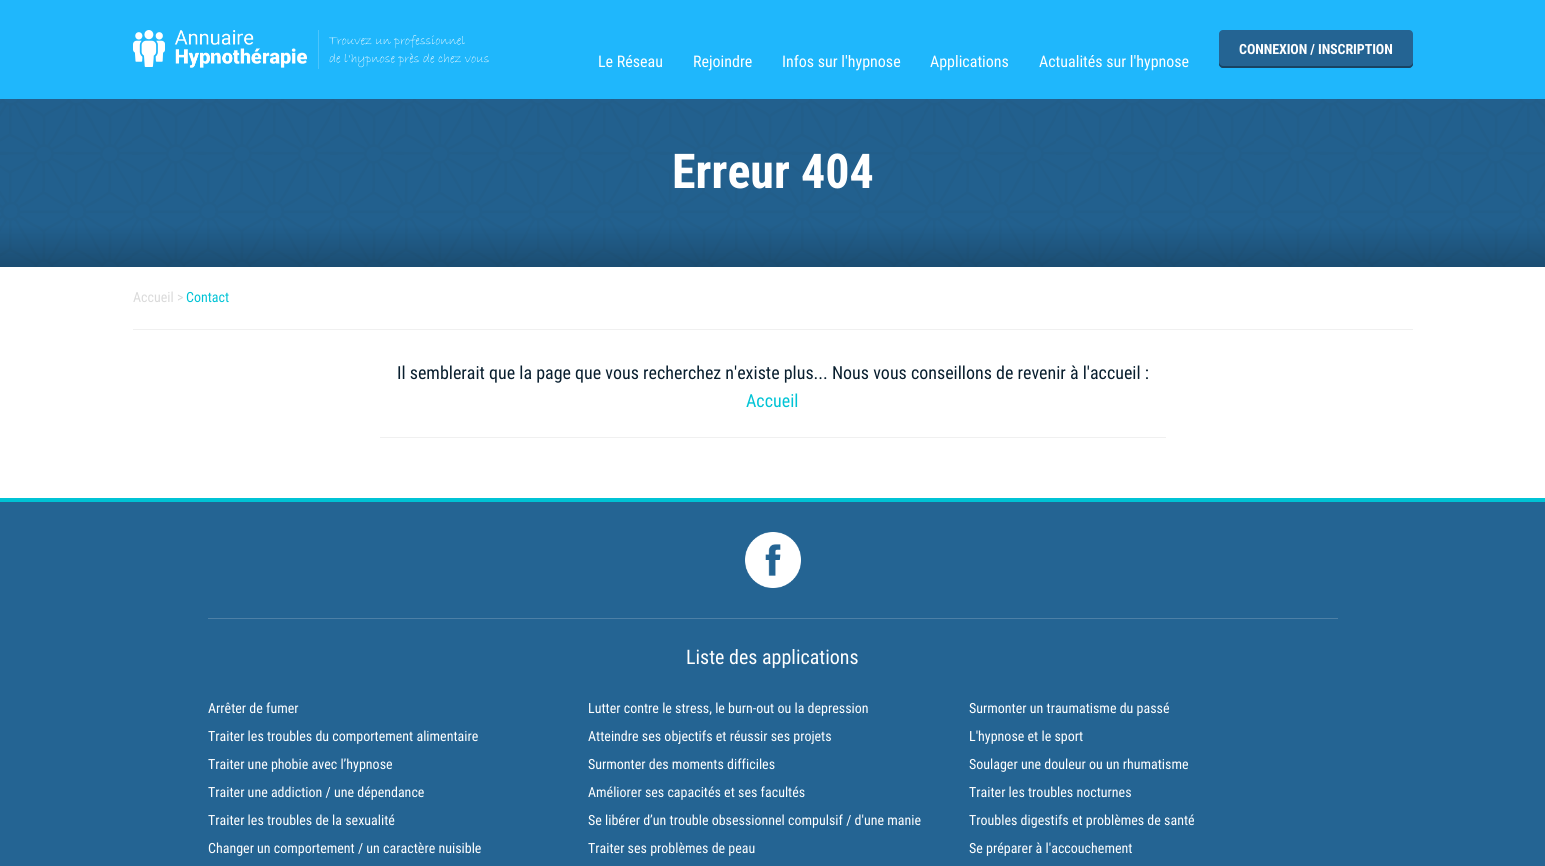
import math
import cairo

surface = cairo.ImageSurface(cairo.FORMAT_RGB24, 1545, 866)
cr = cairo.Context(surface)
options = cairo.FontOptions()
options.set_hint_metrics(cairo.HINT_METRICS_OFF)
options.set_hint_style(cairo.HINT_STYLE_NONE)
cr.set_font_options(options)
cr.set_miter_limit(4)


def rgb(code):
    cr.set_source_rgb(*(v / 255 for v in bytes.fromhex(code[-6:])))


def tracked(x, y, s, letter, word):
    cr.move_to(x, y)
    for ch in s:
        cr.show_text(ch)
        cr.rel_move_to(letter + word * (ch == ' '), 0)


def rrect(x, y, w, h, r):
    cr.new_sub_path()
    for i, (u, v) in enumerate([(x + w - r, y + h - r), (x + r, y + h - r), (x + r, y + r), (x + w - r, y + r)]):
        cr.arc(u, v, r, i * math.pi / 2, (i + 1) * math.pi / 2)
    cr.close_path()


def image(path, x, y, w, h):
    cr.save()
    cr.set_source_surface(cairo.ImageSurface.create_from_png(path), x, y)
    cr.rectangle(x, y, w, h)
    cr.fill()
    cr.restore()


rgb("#ffffff")
cr.paint()
rgb("#1fb7fc")
cr.rectangle(0, 0, 1545, 99)
cr.fill()
image("img/1.png", 133, 30, 174, 38)
rgb("#4cc5fd")
cr.rectangle(318, 30, 1, 39)
cr.fill()
rgb("#246493")
rrect(1219, 30, 194, 38, 4)
cr.fill()
rgb("#184362")
cr.new_path()
cr.move_to(1219, 62)
cr.line_to(1219, 64)
cr.curve_to(1219, 66, 1221, 68, 1223, 68)
cr.line_to(1409, 68)
cr.curve_to(1411, 68, 1413, 66, 1413, 64)
cr.line_to(1413, 62)
cr.curve_to(1413, 64, 1411, 66, 1409, 66)
cr.line_to(1223, 66)
cr.curve_to(1221, 66, 1219, 64, 1219, 62)
cr.close_path()
cr.fill()
image("img/2.png", 0, 99, 1545, 168)
for x, y, w, h, color in [
    (133, 329, 1280, 1, "#f0f0f0"),
    (380, 437, 786, 1, "#f0f0f0"),
    (0, 502, 1545, 364, "#246493"),
    (0, 498, 1545, 4, "#00c3d5"),
]:
    rgb(color)
    cr.rectangle(x, y, w, h)
    cr.fill()
image("img/3.png", 745, 532, 56, 56)
rgb("#4d80a6")
cr.rectangle(208, 618, 1130, 1)
cr.fill()
cr.select_font_face("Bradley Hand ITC")
cr.set_font_size(13)
rgb("#ffffff")
cr.move_to(329, 44)
cr.show_text("Trouvez un professionnel")
cr.move_to(329, 62)
cr.show_text("de l'hypnose près de chez vous")
cr.select_font_face("Roboto Condensed", cairo.FONT_SLANT_NORMAL, cairo.FONT_WEIGHT_BOLD)
cr.set_font_size(14)
tracked(1239, 54, "CONNEXION / INSCRIPTION", -0.1, 0)
cr.select_font_face("Roboto Condensed")
cr.set_font_size(16)
for x, y, s in [
    (598, 67, "Le Réseau"),
    (693, 67, "Rejoindre"),
    (782, 67, "Infos sur l'hypnose"),
    (930, 67, "Applications"),
    (1039, 67, "Actualités sur l'hypnose"),
]:
    cr.move_to(x, y)
    cr.show_text(s)
cr.select_font_face("Roboto Condensed", cairo.FONT_SLANT_NORMAL, cairo.FONT_WEIGHT_BOLD)
cr.set_font_size(48)
cr.move_to(672, 188)
cr.show_text("Erreur 404")
cr.select_font_face("Roboto Condensed")
cr.set_font_size(14)
rgb("#dadada")
cr.move_to(133, 302)
cr.show_text("Accueil >")
rgb("#00c3d5")
cr.move_to(186, 302)
cr.show_text("Contact")
cr.set_font_size(18)
rgb("#081e2e")
cr.move_to(397, 379)
cr.show_text("Il semblerait que la page que vous recherchez n'existe plus... Nous vous conseillons de revenir à l'accueil :")
rgb("#00c3d5")
cr.move_to(746, 407)
cr.show_text("Accueil")
cr.set_font_size(20)
rgb("#ffffff")
cr.move_to(686, 664)
cr.show_text("Liste des applications")
cr.set_font_size(14)
for x, y, s in [
    (208, 713, "Arrêter de fumer"),
    (588, 713, "Lutter contre le stress, le burn-out ou la depression"),
    (969, 713, "Surmonter un traumatisme du passé"),
    (208, 741, "Traiter les troubles du comportement alimentaire"),
    (588, 741, "Atteindre ses objectifs et réussir ses projets"),
    (969, 741, "L'hypnose et le sport"),
    (208, 769, "Traiter une phobie avec l’hypnose"),
    (588, 769, "Surmonter des moments difficiles"),
    (969, 769, "Soulager une douleur ou un rhumatisme"),
    (208, 797, "Traiter une addiction / une dépendance"),
    (588, 797, "Améliorer ses capacités et ses facultés"),
    (969, 797, "Traiter les troubles nocturnes"),
    (208, 825, "Traiter les troubles de la sexualité"),
    (588, 825, "Se libérer d’un trouble obsessionnel compulsif / d'une manie"),
    (969, 825, "Troubles digestifs et problèmes de santé"),
    (208, 853, "Changer un comportement / un caractère nuisible"),
    (588, 853, "Traiter ses problèmes de peau"),
    (969, 853, "Se préparer à l'accouchement"),
]:
    cr.move_to(x, y)
    cr.show_text(s)
surface.write_to_png("page.png")
